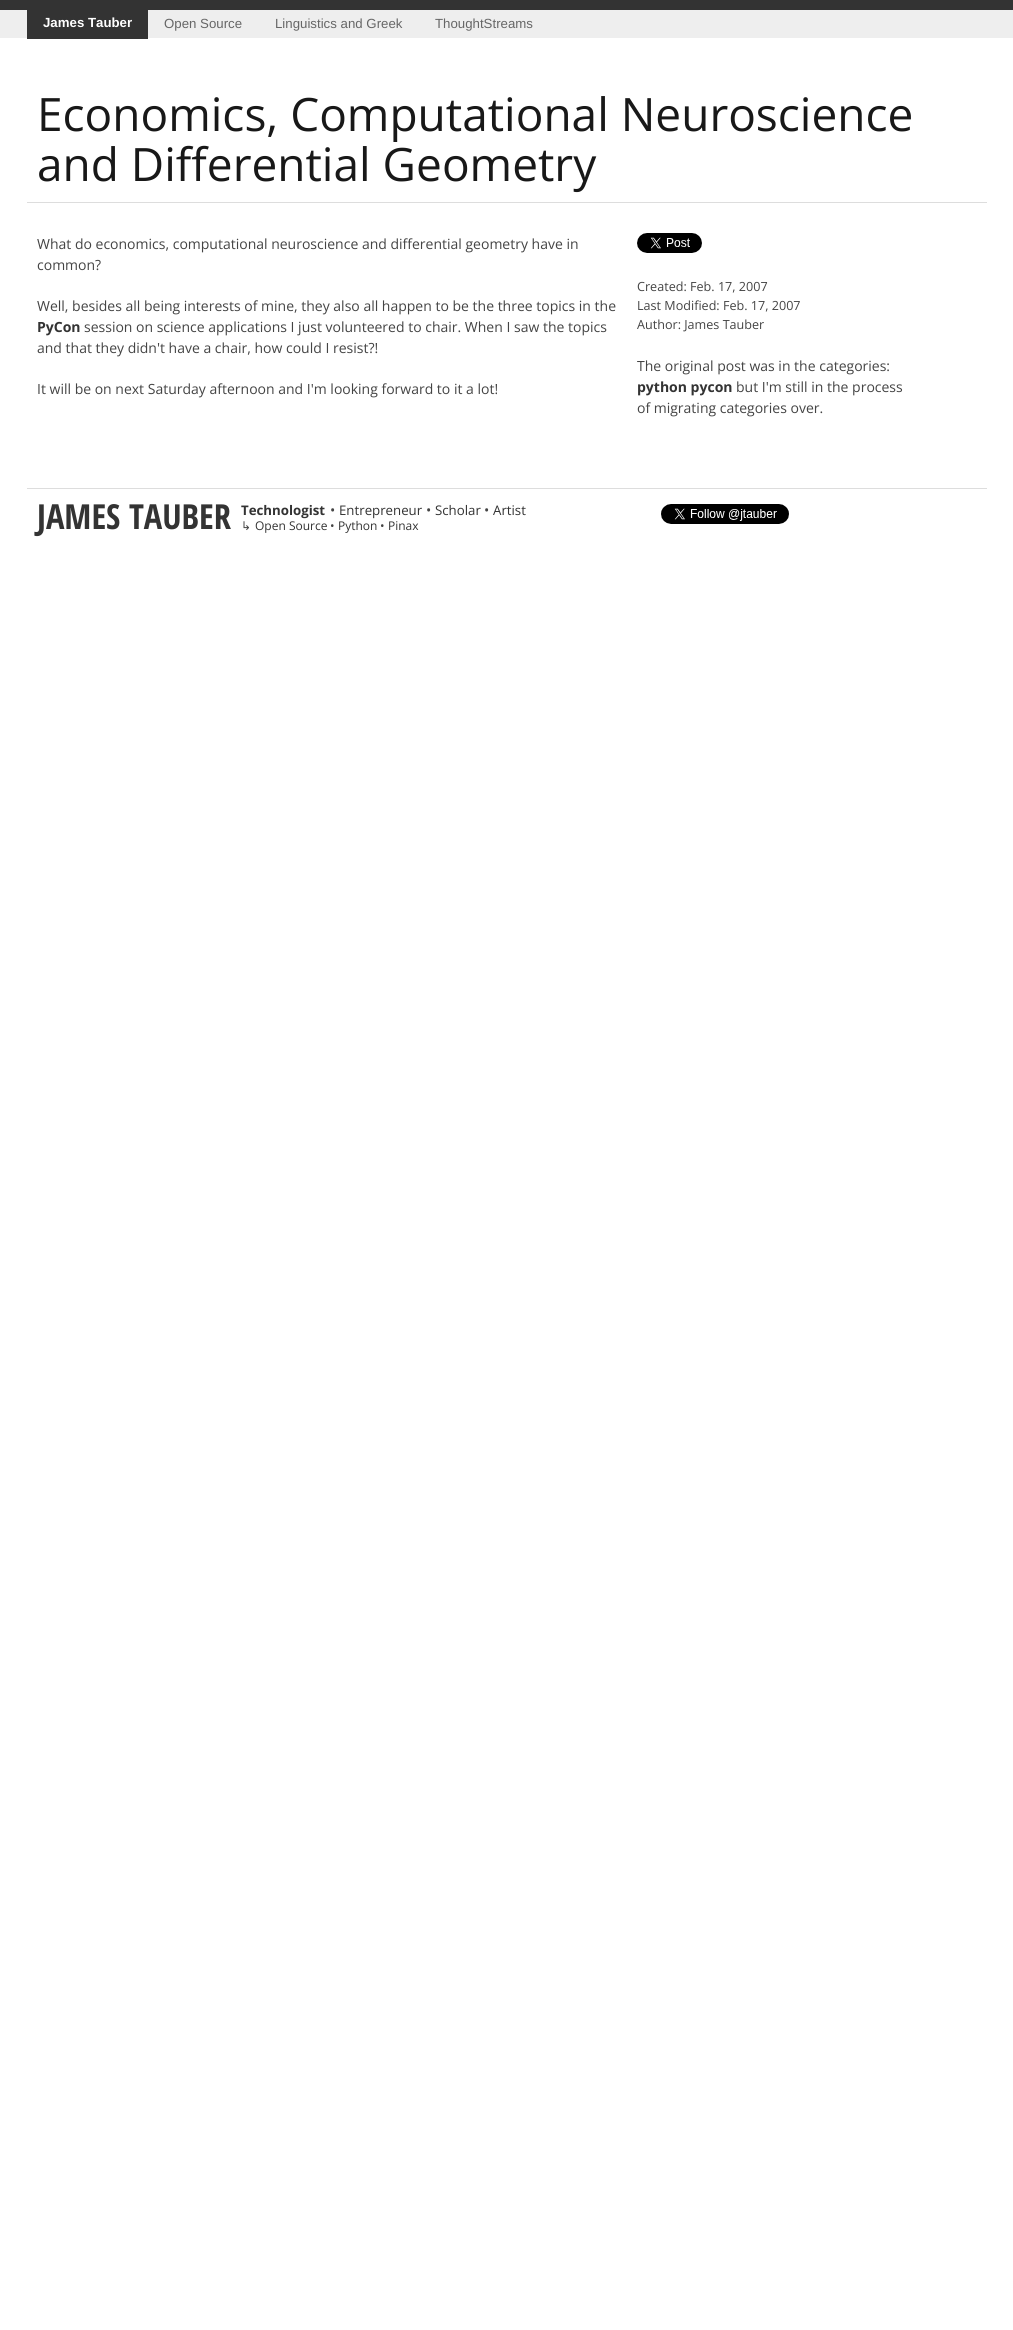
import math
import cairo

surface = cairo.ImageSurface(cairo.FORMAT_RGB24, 1013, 2330)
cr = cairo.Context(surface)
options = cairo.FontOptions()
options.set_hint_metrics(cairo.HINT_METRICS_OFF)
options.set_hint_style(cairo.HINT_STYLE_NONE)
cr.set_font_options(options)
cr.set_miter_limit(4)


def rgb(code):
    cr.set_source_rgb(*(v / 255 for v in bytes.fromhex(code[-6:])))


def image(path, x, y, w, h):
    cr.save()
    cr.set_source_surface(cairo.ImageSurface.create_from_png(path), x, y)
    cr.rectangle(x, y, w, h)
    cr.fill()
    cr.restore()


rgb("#ffffff")
cr.paint()
for x, y, w, h, color in [
    (0, 0, 1013, 10, "#333333"),
    (0, 10, 1013, 28, "#eeeeee"),
    (27, 10, 121, 29, "#333333"),
    (27, 202, 960, 1, "#dddddd"),
]:
    rgb(color)
    cr.rectangle(x, y, w, h)
    cr.fill()
image("img/1.png", 637, 233, 65, 20)
cr.rectangle(27, 488, 960, 1)
cr.fill()
image("img/2.png", 661, 504, 128, 20)
cr.select_font_face("Liberation Sans", cairo.FONT_SLANT_NORMAL, cairo.FONT_WEIGHT_BOLD)
cr.set_font_size(13.25)
rgb("#ffffff")
cr.move_to(43, 27)
cr.show_text("James Tauber")
cr.select_font_face("Liberation Sans")
rgb("#666666")
for x, y, s in [
    (164, 28, "Open Source"),
    (275, 28, "Linguistics and Greek"),
    (435, 28, "ThoughtStreams"),
]:
    cr.move_to(x, y)
    cr.show_text(s)
cr.select_font_face("Open Sans")
cr.set_font_size(46)
rgb("#181818")
cr.move_to(37, 131)
cr.show_text("Economics, Computational Neuroscience")
cr.move_to(37, 181)
cr.show_text("and Differential Geometry")
cr.set_font_size(14)
rgb("#444444")
for x, y, s in [
    (37, 249, "What do economics, computational neuroscience and differential geometry have in"),
    (37, 270, "common?"),
    (37, 311, "Well, besides all being interests of mine, they also all happen to be the three topics in the"),
]:
    cr.move_to(x, y)
    cr.show_text(s)
cr.select_font_face("Open Sans", cairo.FONT_SLANT_NORMAL, cairo.FONT_WEIGHT_BOLD)
rgb("#333333")
cr.move_to(37, 332)
cr.show_text("PyCon")
cr.select_font_face("Open Sans")
rgb("#444444")
for x, y, s in [
    (84, 332, "session on science applications I just volunteered to chair. When I saw the topics"),
    (37, 353, "and that they didn't have a chair, how could I resist?!"),
    (37, 394, "It will be on next Saturday afternoon and I'm looking forward to it a lot!"),
]:
    cr.move_to(x, y)
    cr.show_text(s)
cr.set_font_size(12.6)
for x, y, s in [
    (637, 291, "Created: Feb. 17, 2007"),
    (637, 310, "Last Modified: Feb. 17, 2007"),
    (637, 329, "Author: James Tauber"),
]:
    cr.move_to(x, y)
    cr.show_text(s)
cr.set_font_size(14)
cr.move_to(637, 371)
cr.show_text("The original post was in the categories:")
cr.select_font_face("Open Sans", cairo.FONT_SLANT_NORMAL, cairo.FONT_WEIGHT_BOLD)
rgb("#333333")
cr.move_to(637, 392)
cr.show_text("python pycon")
cr.select_font_face("Open Sans")
rgb("#444444")
cr.move_to(736, 392)
cr.show_text("but I'm still in the process")
cr.move_to(637, 413)
cr.show_text("of migrating categories over.")
cr.select_font_face("Open Sans Condensed", cairo.FONT_SLANT_NORMAL, cairo.FONT_WEIGHT_BOLD)
cr.set_font_size(34.5)
rgb("#333333")
cr.move_to(37, 529)
cr.show_text("JAMES TAUBER")
cr.select_font_face("Open Sans", cairo.FONT_SLANT_NORMAL, cairo.FONT_WEIGHT_BOLD)
cr.set_font_size(13.25)
cr.move_to(241, 515)
cr.show_text("Technologist")
cr.select_font_face("Open Sans")
cr.set_font_size(14)
rgb("#444444")
cr.move_to(330, 515)
cr.show_text("•")
cr.set_font_size(13.25)
rgb("#333333")
cr.move_to(339, 515)
cr.show_text("Entrepreneur")
cr.set_font_size(14)
rgb("#444444")
cr.move_to(426, 515)
cr.show_text("•")
cr.set_font_size(13.25)
rgb("#333333")
cr.move_to(435, 515)
cr.show_text("Scholar")
cr.set_font_size(14)
rgb("#444444")
cr.move_to(484, 515)
cr.show_text("•")
cr.set_font_size(13.25)
rgb("#333333")
cr.move_to(493, 515)
cr.show_text("Artist")
cr.select_font_face("DejaVu Sans")
cr.set_font_size(12)
rgb("#444444")
cr.move_to(241, 530)
cr.show_text("↳")
cr.select_font_face("Open Sans")
rgb("#333333")
cr.move_to(255, 530)
cr.show_text("Open Source")
rgb("#444444")
cr.move_to(330, 530)
cr.show_text("•")
rgb("#333333")
cr.move_to(338, 530)
cr.show_text("Python")
rgb("#444444")
cr.move_to(380, 530)
cr.show_text("•")
rgb("#333333")
cr.move_to(388, 530)
cr.show_text("Pinax")
surface.write_to_png("page.png")
